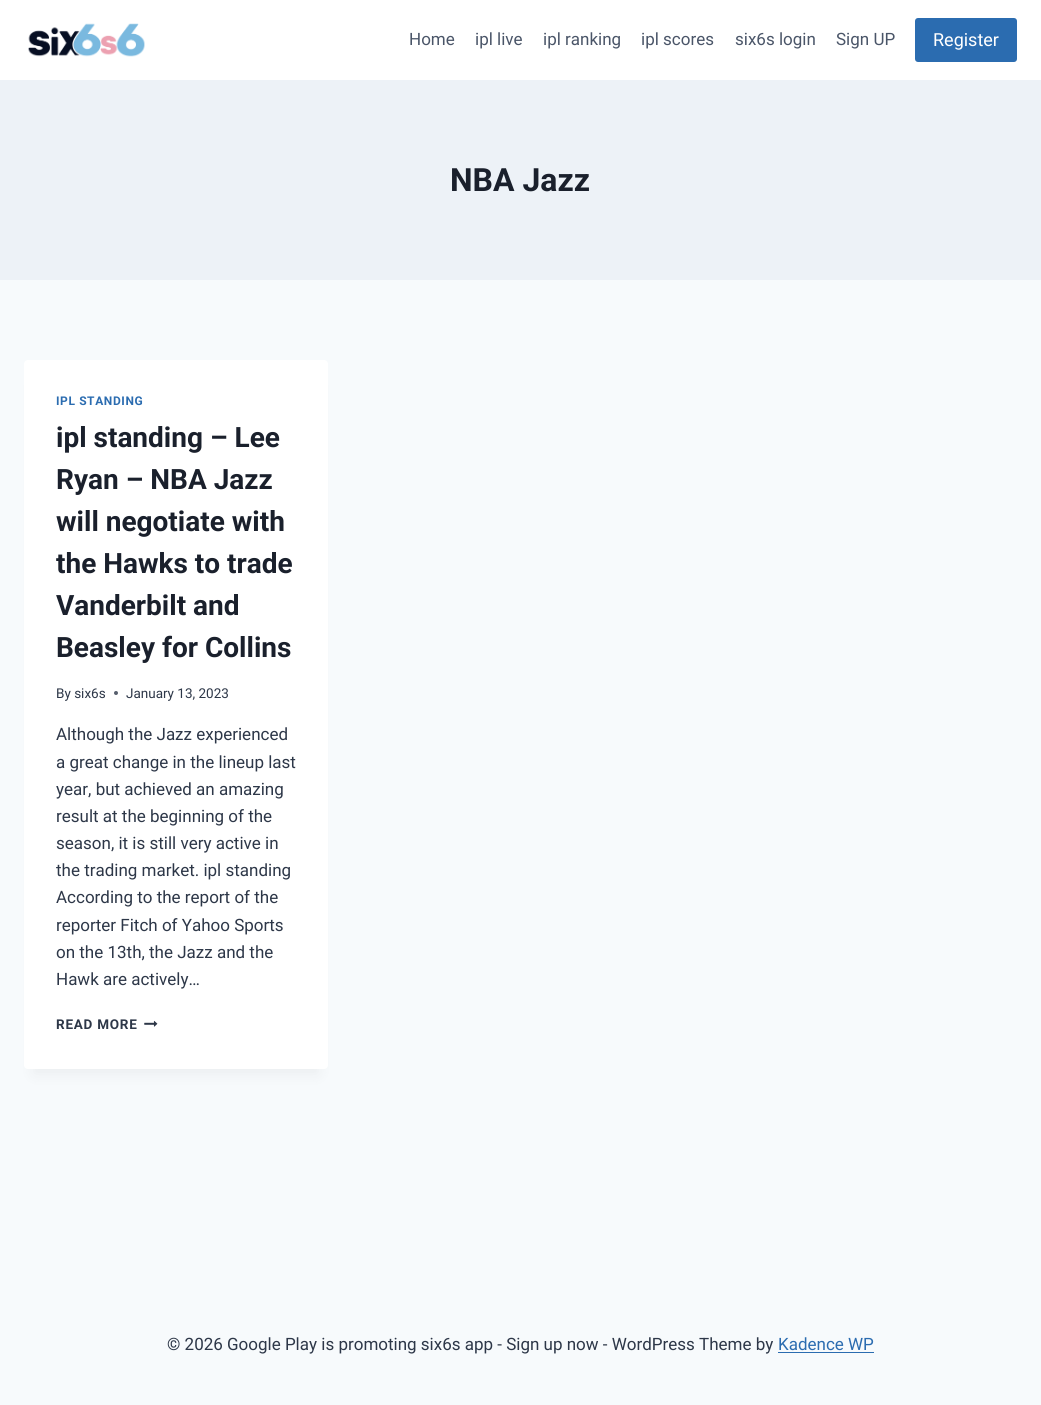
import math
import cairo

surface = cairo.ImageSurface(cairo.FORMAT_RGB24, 1041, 1405)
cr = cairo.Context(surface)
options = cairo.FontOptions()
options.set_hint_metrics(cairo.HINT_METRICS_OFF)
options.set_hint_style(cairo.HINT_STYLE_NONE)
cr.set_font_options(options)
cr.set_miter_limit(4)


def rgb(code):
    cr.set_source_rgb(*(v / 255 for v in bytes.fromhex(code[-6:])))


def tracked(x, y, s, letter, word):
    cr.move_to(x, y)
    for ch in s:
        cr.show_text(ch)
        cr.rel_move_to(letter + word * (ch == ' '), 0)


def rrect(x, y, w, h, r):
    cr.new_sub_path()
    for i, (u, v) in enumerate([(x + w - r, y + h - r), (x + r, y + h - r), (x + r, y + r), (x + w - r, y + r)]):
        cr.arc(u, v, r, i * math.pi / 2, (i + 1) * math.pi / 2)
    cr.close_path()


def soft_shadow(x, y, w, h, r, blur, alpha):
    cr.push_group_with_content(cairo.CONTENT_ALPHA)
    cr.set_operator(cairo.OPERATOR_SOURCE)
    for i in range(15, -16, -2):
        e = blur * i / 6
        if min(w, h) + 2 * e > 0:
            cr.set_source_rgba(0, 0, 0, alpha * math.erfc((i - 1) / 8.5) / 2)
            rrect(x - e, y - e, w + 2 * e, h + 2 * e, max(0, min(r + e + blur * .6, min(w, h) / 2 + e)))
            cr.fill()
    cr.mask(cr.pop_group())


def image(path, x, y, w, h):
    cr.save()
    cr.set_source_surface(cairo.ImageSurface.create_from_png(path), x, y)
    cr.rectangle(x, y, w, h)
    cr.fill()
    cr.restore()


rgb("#f7fafc")
cr.paint()
rgb("#ffffff")
cr.rectangle(0, 0, 1041, 80)
cr.fill()
image("img/1.png", 28, 23, 117, 34)
rgb("#2b6cb0")
rrect(915, 18, 102, 44, 3)
cr.fill()
rgb("#edf2f7")
cr.rectangle(0, 80, 1041, 200)
cr.fill()
rgb("#000000")
soft_shadow(34, 385, 284, 689, 0, 7.5, 0.05)
rgb("#ffffff")
rrect(24, 360, 304, 709, 4)
cr.fill()
rgb("#575f6d")
cr.arc(116, 693, 2, 0, 2 * math.pi)
cr.fill()
image("img/2.png", 144, 1020, 14, 7)
rgb("#2b6cb0")
cr.rectangle(778, 1352, 96, 1)
cr.fill()
cr.select_font_face("Roboto")
cr.set_font_size(17)
rgb("#4a5568")
for x, y, s in [
    (409, 45, "Home"),
    (475, 45, "ipl live"),
    (543, 45, "ipl ranking"),
    (641, 45, "ipl scores"),
    (735, 45, "six6s login"),
    (836, 45, "Sign UP"),
]:
    cr.move_to(x, y)
    cr.show_text(s)
cr.set_font_size(18)
rgb("#ffffff")
cr.move_to(933, 46)
cr.show_text("Register")
cr.select_font_face("Roboto", cairo.FONT_SLANT_NORMAL, cairo.FONT_WEIGHT_BOLD)
cr.set_font_size(32)
rgb("#1a202c")
cr.move_to(450, 191)
cr.show_text("NBA Jazz")
cr.set_font_size(12)
rgb("#2b6cb0")
tracked(56, 405, "IPL STANDING", 0.6, 0)
cr.set_font_size(28)
rgb("#1a202c")
for x, y, s in [
    (56, 447, "ipl standing – Lee"),
    (56, 489, "Ryan – NBA Jazz"),
    (56, 531, "will negotiate with"),
    (56, 573, "the Hawks to trade"),
    (56, 615, "Vanderbilt and"),
    (56, 657, "Beasley for Collins"),
]:
    cr.move_to(x, y)
    cr.show_text(s)
cr.select_font_face("Roboto")
cr.set_font_size(13.5)
rgb("#2d3748")
cr.move_to(56, 698)
cr.show_text("By six6s")
cr.move_to(126, 698)
cr.show_text("January 13, 2023")
cr.set_font_size(17)
for x, y, s in [
    (56, 740, "Although the Jazz experienced"),
    (56, 768, "a great change in the lineup last"),
    (56, 795, "year, but achieved an amazing"),
    (56, 822, "result at the beginning of the"),
    (56, 849, "season, it is still very active in"),
    (56, 876, "the trading market. ipl standing"),
    (56, 903, "According to the report of the"),
    (56, 931, "reporter Fitch of Yahoo Sports"),
    (56, 958, "on the 13th, the Jazz and the"),
    (56, 985, "Hawk are actively…"),
]:
    cr.move_to(x, y)
    cr.show_text(s)
cr.select_font_face("Roboto", cairo.FONT_SLANT_NORMAL, cairo.FONT_WEIGHT_BOLD)
cr.set_font_size(13.5)
tracked(56, 1029, "READ MORE", 0.75, 0)
cr.select_font_face("Roboto")
cr.set_font_size(17)
cr.move_to(167, 1350)
cr.show_text("© 2026 Google Play is promoting six6s app - Sign up now - WordPress Theme by")
rgb("#2b6cb0")
cr.move_to(778, 1350)
cr.show_text("Kadence WP")
surface.write_to_png("page.png")
